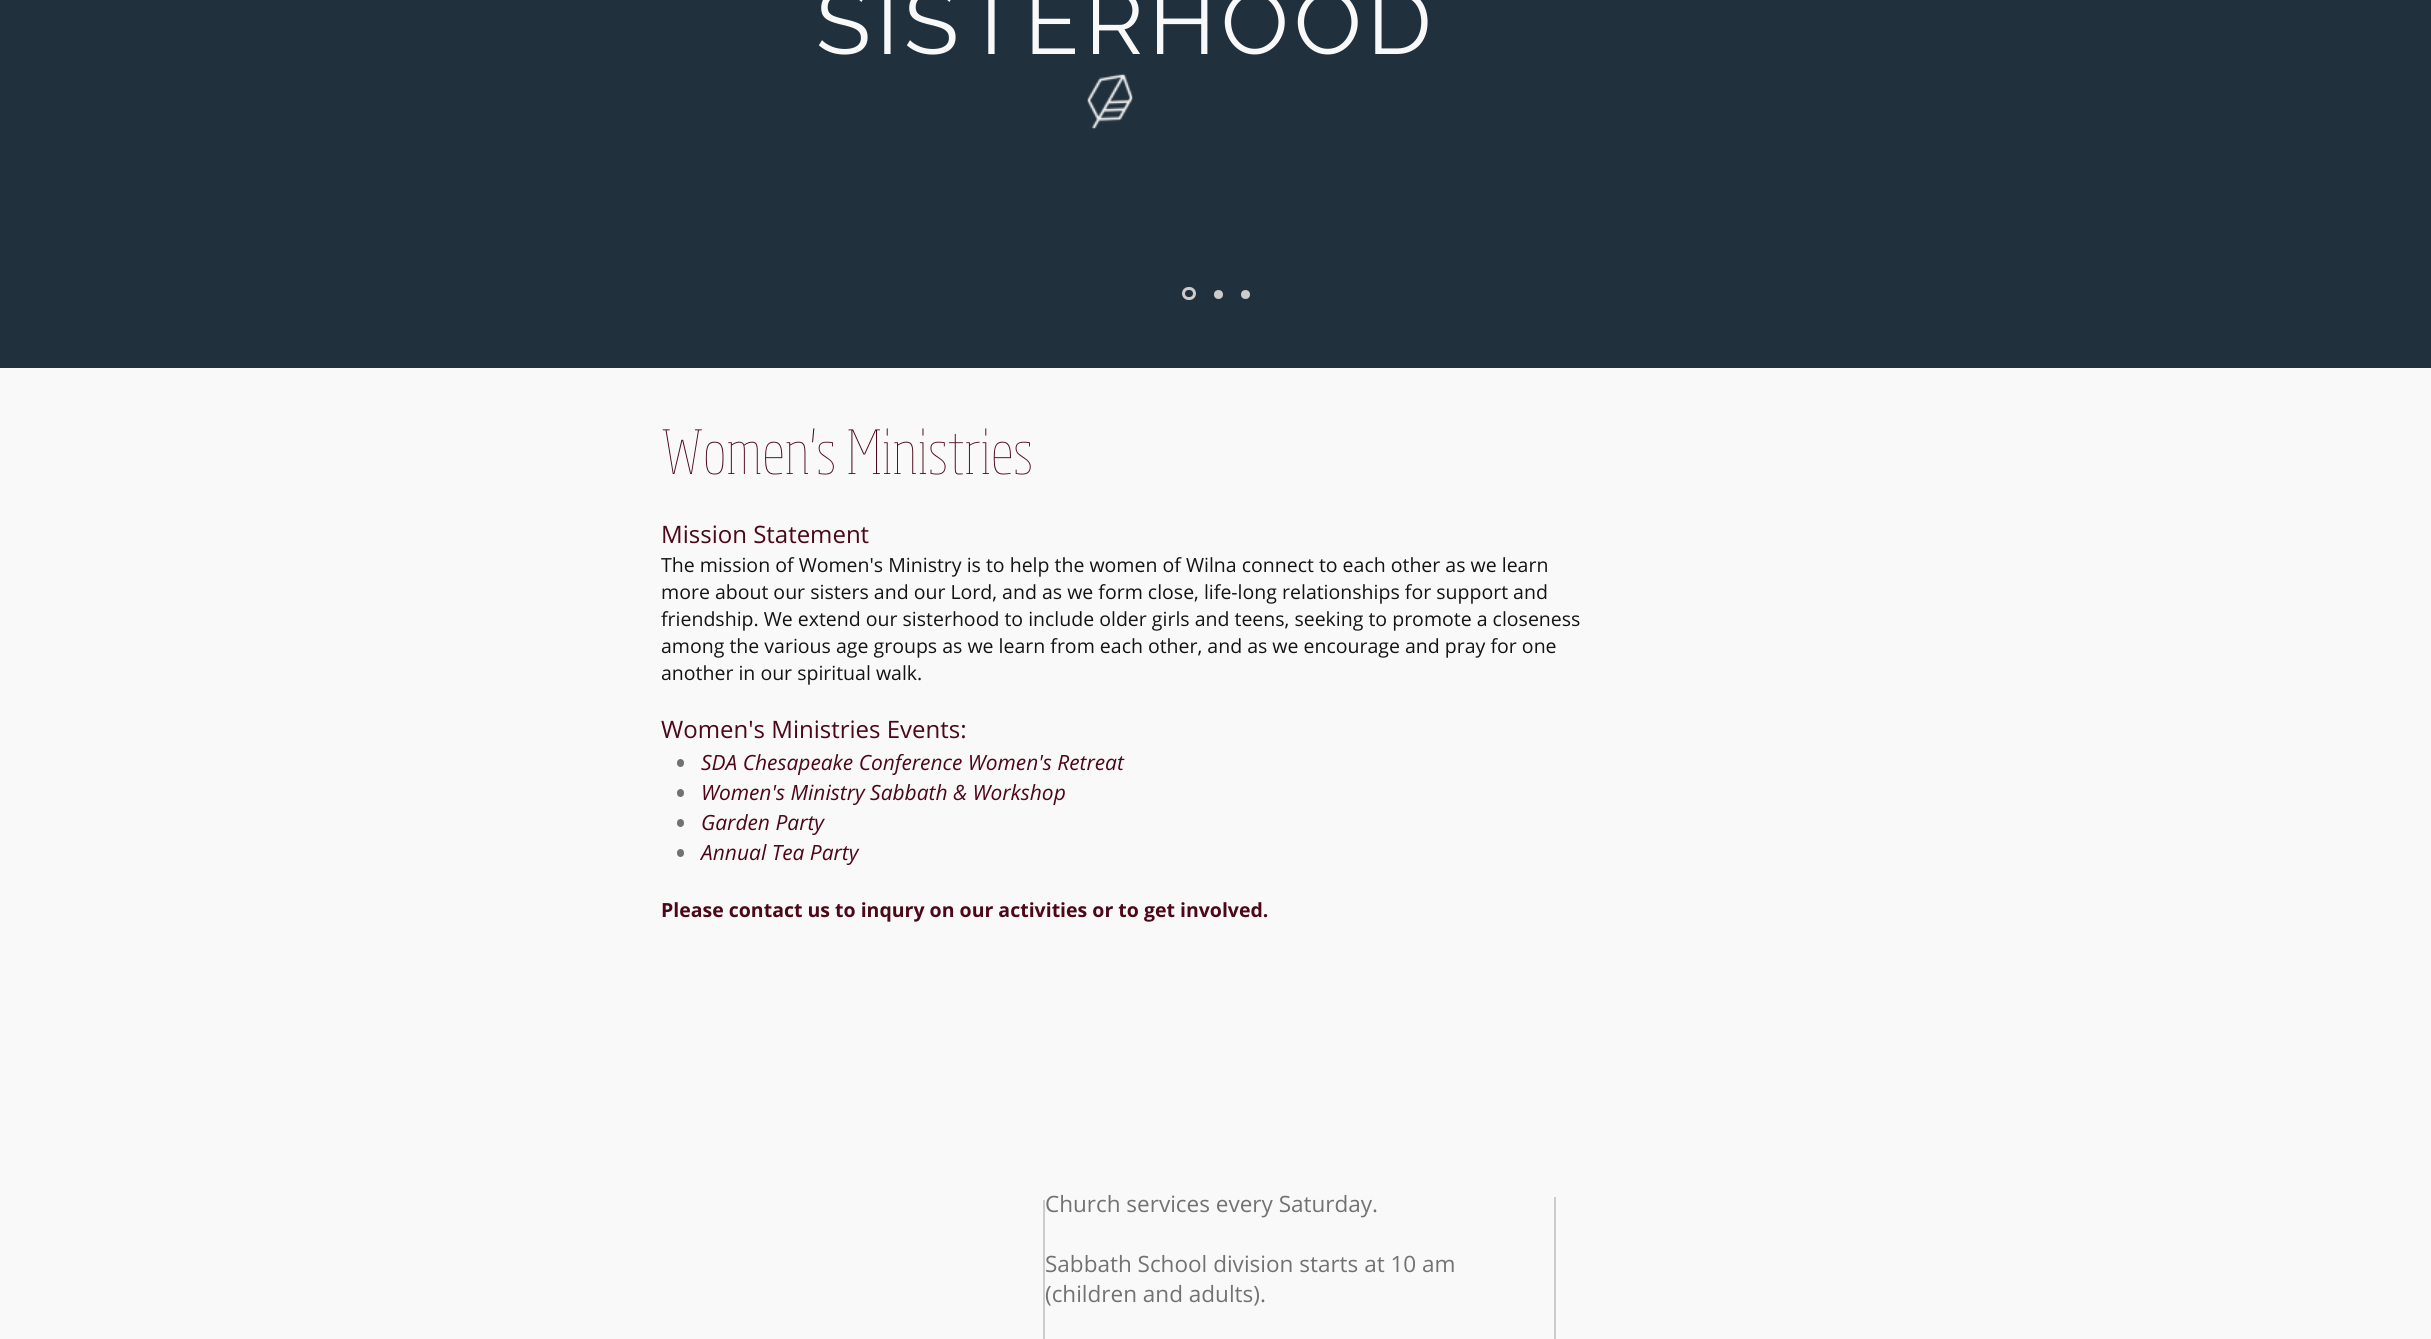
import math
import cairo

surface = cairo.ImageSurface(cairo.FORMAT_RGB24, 2431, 1339)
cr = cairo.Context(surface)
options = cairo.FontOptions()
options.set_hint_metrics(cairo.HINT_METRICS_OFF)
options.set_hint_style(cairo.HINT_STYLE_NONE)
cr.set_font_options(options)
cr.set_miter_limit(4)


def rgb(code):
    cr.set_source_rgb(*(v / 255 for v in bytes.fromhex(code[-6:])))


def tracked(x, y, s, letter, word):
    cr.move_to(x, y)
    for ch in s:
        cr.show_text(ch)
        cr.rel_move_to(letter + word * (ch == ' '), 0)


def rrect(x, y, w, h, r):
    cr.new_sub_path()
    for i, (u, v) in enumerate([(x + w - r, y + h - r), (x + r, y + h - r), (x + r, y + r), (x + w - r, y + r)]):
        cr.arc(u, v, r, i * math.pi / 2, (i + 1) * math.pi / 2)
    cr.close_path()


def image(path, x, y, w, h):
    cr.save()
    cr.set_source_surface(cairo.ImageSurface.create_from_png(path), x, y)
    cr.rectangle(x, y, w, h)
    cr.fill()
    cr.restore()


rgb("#f9f9f9")
cr.paint()
rgb("#20303c")
cr.rectangle(0, 0, 2431, 368)
cr.fill()
image("img/1.png", 1087, 74, 46, 55)
rrect(1183.5, 288.5, 11, 10, 5)
rgb("#cdcccc")
cr.set_line_width(3)
cr.stroke()
cr.arc(1218.5, 294.5, 4.5, 0, 2 * math.pi)
cr.fill()
cr.arc(1245.5, 294.5, 4.5, 0, 2 * math.pi)
cr.fill()
image("img/2.png", 662, 428, 369, 47)
rgb("#727272")
rrect(677, 759, 7, 8, 3.5)
cr.fill()
rrect(677, 789, 7, 8, 3.5)
cr.fill()
rrect(677, 819, 7, 8, 3.5)
cr.fill()
rrect(677, 849, 7, 8, 3.5)
cr.fill()
rgb("#cdcccc")
cr.rectangle(1043, 1200, 2, 139)
cr.fill()
cr.rectangle(1554, 1197, 2, 142)
cr.fill()
cr.select_font_face("Raleway")
cr.set_font_size(90)
rgb("#f9f9f9")
tracked(816, 54, "SISTERHOOD", 5.5, 0)
cr.select_font_face("Open Sans")
cr.set_font_size(24)
rgb("#4d071a")
cr.move_to(661, 543)
cr.show_text("Mission Statement")
cr.set_font_size(19.5)
rgb("#141414")
for x, y, s in [
    (661, 572, "The mission of Women's Ministry is to help the women of Wilna connect to each other as we learn"),
    (661, 599, "more about our sisters and our Lord, and as we form close, life-long relationships for support and"),
    (661, 626, "friendship. We extend our sisterhood to include older girls and teens, seeking to promote a closeness"),
    (661, 653, "among the various age groups as we learn from each other, and as we encourage and pray for one"),
    (661, 680, "another in our spiritual walk."),
]:
    cr.move_to(x, y)
    cr.show_text(s)
cr.set_font_size(24)
rgb("#4d071a")
cr.move_to(661, 738)
cr.show_text("Women's Ministries Events:")
cr.select_font_face("Open Sans", cairo.FONT_SLANT_ITALIC)
cr.set_font_size(21)
for x, y, s in [
    (701, 770, "SDA Chesapeake Conference Women's Retreat"),
    (701, 800, "Women's Ministry Sabbath & Workshop"),
    (701, 830, "Garden Party"),
    (701, 860, "Annual Tea Party"),
]:
    cr.move_to(x, y)
    cr.show_text(s)
cr.select_font_face("Open Sans", cairo.FONT_SLANT_NORMAL, cairo.FONT_WEIGHT_BOLD)
cr.set_font_size(19.5)
cr.move_to(661, 917)
cr.show_text("Please contact us to inqury on our activities or to get involved.")
cr.select_font_face("Open Sans")
cr.set_font_size(22.5)
rgb("#727272")
for x, y, s in [
    (1045, 1212, "Church services every Saturday."),
    (1045, 1272, "Sabbath School division starts at 10 am"),
    (1045, 1302, "(children and adults)."),
]:
    cr.move_to(x, y)
    cr.show_text(s)
surface.write_to_png("page.png")
